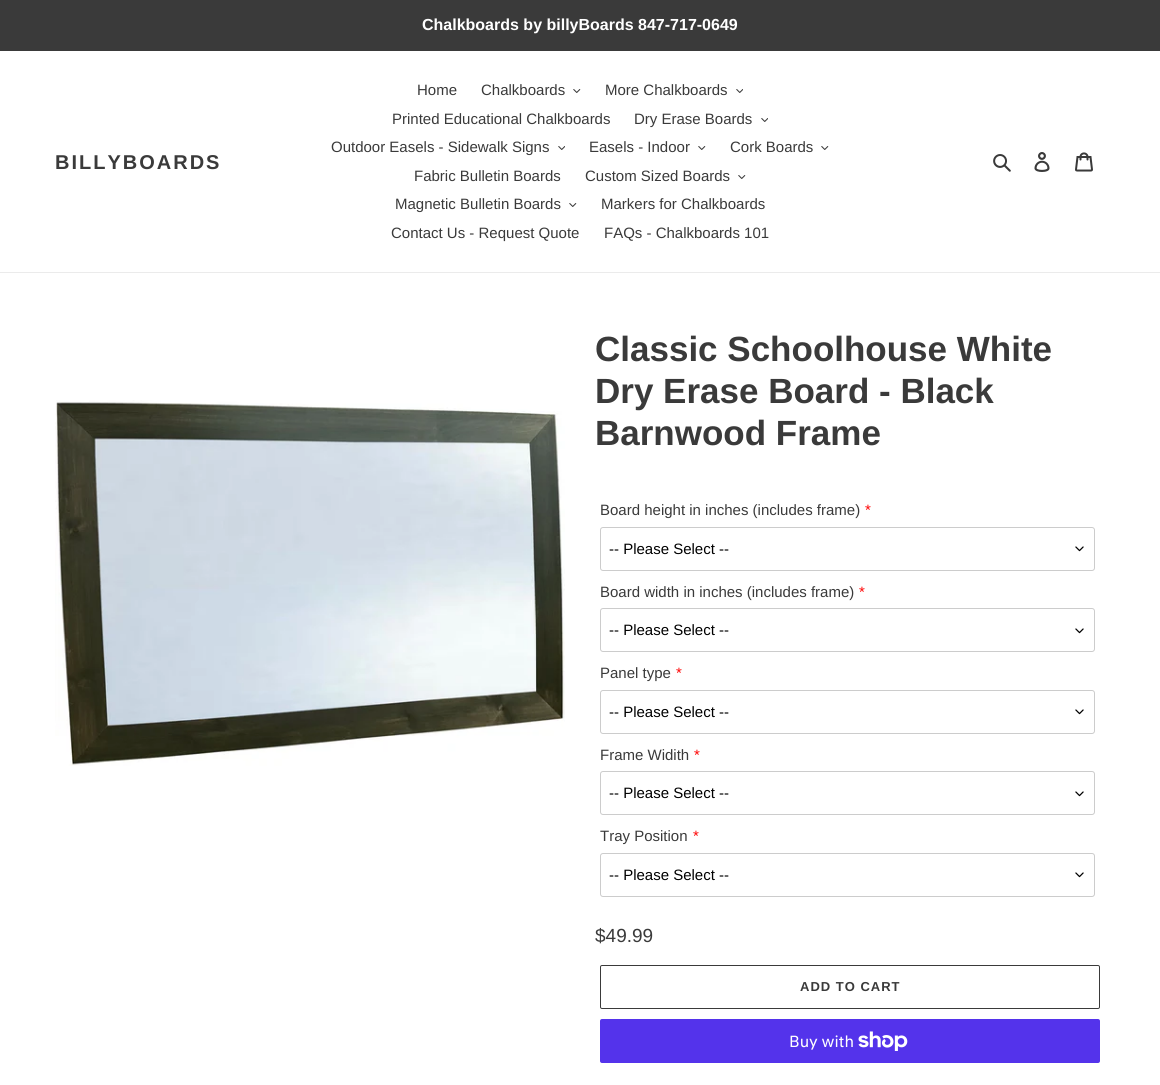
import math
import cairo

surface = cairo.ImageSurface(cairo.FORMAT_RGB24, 1160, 1085)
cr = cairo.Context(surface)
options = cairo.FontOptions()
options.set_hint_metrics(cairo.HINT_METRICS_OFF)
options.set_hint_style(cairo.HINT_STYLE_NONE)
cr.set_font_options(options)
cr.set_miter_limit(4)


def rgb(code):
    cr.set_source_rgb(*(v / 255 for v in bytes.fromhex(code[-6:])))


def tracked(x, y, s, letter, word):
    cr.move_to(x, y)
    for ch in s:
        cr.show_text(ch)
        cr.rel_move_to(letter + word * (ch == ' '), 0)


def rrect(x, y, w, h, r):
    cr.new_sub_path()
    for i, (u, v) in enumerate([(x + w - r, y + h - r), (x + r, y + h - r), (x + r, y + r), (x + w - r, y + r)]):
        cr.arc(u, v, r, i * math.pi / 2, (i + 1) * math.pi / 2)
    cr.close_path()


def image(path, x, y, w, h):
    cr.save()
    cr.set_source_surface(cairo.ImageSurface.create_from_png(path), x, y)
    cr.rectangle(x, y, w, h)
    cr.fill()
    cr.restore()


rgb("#ffffff")
cr.paint()
rgb("#3a3a3a")
cr.rectangle(0, 0, 1160, 51)
cr.fill()
rgb("#ebebeb")
cr.rectangle(0, 272, 1160, 1)
cr.fill()
image("img/1.png", 573, 89, 8, 4)
image("img/2.png", 736, 89, 7, 4)
image("img/2.png", 761, 118, 7, 4)
image("img/2.png", 558, 146, 7, 4)
image("img/1.png", 698, 146, 8, 4)
image("img/1.png", 821, 146, 8, 4)
image("img/1.png", 738, 175, 8, 4)
image("img/1.png", 569, 203, 8, 4)
image("img/3.png", 993, 154, 18, 18)
image("img/4.png", 1034, 152, 16, 20)
image("img/5.png", 1075, 152, 18, 20)
image("img/6.png", 55, 400, 510, 366)
image("img/7.png", 1075, 546, 9, 6)
rrect(600.5, 527.5, 494, 43, 2.5)
rgb("#cccccc")
cr.set_line_width(1)
cr.stroke()
image("img/7.png", 1075, 628, 9, 6)
rrect(600.5, 608.5, 494, 43, 2.5)
cr.stroke()
image("img/7.png", 1075, 709, 9, 6)
rrect(600.5, 690.5, 494, 43, 2.5)
cr.stroke()
image("img/7.png", 1075, 791, 9, 6)
rrect(600.5, 771.5, 494, 43, 2.5)
cr.stroke()
image("img/7.png", 1075, 872, 9, 6)
rrect(600.5, 853.5, 494, 43, 2.5)
cr.stroke()
rrect(600.5, 965.5, 499, 43, 1.5)
rgb("#3a3a3a")
cr.stroke()
rgb("#5433eb")
rrect(600, 1019, 500, 44, 2)
cr.fill()
image("img/8.png", 858, 1031, 50, 20)
cr.select_font_face("Liberation Sans", cairo.FONT_SLANT_NORMAL, cairo.FONT_WEIGHT_BOLD)
cr.set_font_size(16)
rgb("#ffffff")
cr.move_to(422, 30)
cr.show_text("Chalkboards by billyBoards 847-717-0649")
cr.set_font_size(20)
rgb("#3a3a3a")
tracked(55, 169, "BILLYBOARDS", 2, 0)
cr.select_font_face("Liberation Sans")
cr.set_font_size(15)
for x, y, s in [
    (417, 95, "Home"),
    (481, 95, "Chalkboards"),
    (605, 95, "More Chalkboards"),
    (392, 124, "Printed Educational Chalkboards"),
    (634, 124, "Dry Erase Boards"),
    (331, 152, "Outdoor Easels - Sidewalk Signs"),
    (589, 152, "Easels - Indoor"),
    (730, 152, "Cork Boards"),
    (414, 181, "Fabric Bulletin Boards"),
    (585, 181, "Custom Sized Boards"),
    (395, 209, "Magnetic Bulletin Boards"),
    (601, 209, "Markers for Chalkboards"),
    (391, 238, "Contact Us - Request Quote"),
    (604, 238, "FAQs - Chalkboards 101"),
]:
    cr.move_to(x, y)
    cr.show_text(s)
cr.select_font_face("Liberation Sans", cairo.FONT_SLANT_NORMAL, cairo.FONT_WEIGHT_BOLD)
cr.set_font_size(35)
for x, y, s in [
    (595, 361, "Classic Schoolhouse White"),
    (595, 403, "Dry Erase Board - Black"),
    (595, 445, "Barnwood Frame"),
]:
    cr.move_to(x, y)
    cr.show_text(s)
cr.select_font_face("Liberation Sans")
cr.set_font_size(15)
cr.move_to(600, 515)
cr.show_text("Board height in inches (includes frame)")
rgb("#ff0000")
cr.move_to(865, 515)
cr.show_text("*")
rgb("#000000")
cr.move_to(609, 554)
cr.show_text("-- Please Select --")
rgb("#3a3a3a")
cr.move_to(600, 597)
cr.show_text("Board width in inches (includes frame)")
rgb("#ff0000")
cr.move_to(859, 597)
cr.show_text("*")
rgb("#000000")
cr.move_to(609, 635)
cr.show_text("-- Please Select --")
rgb("#3a3a3a")
cr.move_to(600, 678)
cr.show_text("Panel type")
rgb("#ff0000")
cr.move_to(676, 678)
cr.show_text("*")
rgb("#000000")
cr.move_to(609, 717)
cr.show_text("-- Please Select --")
rgb("#3a3a3a")
cr.move_to(600, 760)
cr.show_text("Frame Widith")
rgb("#ff0000")
cr.move_to(694, 760)
cr.show_text("*")
rgb("#000000")
cr.move_to(609, 798)
cr.show_text("-- Please Select --")
rgb("#3a3a3a")
cr.move_to(600, 841)
cr.show_text("Tray Position")
rgb("#ff0000")
cr.move_to(693, 841)
cr.show_text("*")
rgb("#000000")
cr.move_to(609, 880)
cr.show_text("-- Please Select --")
cr.set_font_size(19)
rgb("#3a3a3a")
cr.move_to(595, 942)
cr.show_text("$49.99")
cr.select_font_face("Liberation Sans", cairo.FONT_SLANT_NORMAL, cairo.FONT_WEIGHT_BOLD)
cr.set_font_size(13)
tracked(800, 991, "ADD TO CART", 1, 0)
cr.select_font_face("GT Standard")
cr.set_font_size(16)
rgb("#ffffff")
cr.move_to(789, 1047)
cr.show_text("Buy with")
surface.write_to_png("page.png")
